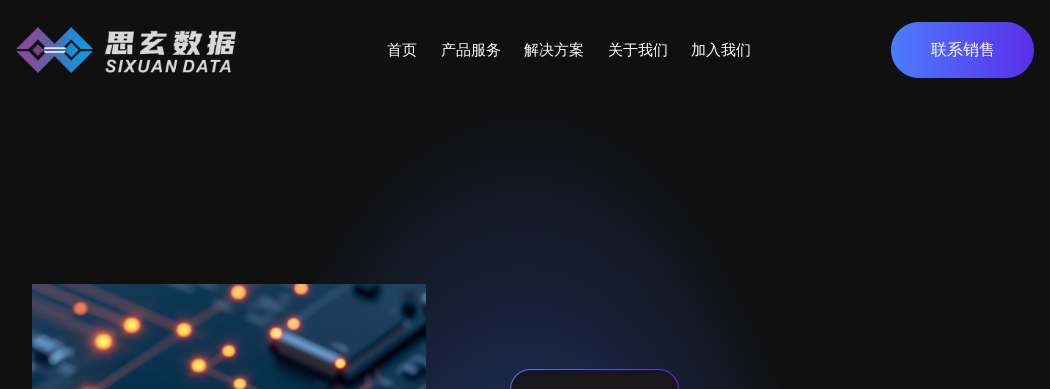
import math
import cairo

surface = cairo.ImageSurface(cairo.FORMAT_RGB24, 1050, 389)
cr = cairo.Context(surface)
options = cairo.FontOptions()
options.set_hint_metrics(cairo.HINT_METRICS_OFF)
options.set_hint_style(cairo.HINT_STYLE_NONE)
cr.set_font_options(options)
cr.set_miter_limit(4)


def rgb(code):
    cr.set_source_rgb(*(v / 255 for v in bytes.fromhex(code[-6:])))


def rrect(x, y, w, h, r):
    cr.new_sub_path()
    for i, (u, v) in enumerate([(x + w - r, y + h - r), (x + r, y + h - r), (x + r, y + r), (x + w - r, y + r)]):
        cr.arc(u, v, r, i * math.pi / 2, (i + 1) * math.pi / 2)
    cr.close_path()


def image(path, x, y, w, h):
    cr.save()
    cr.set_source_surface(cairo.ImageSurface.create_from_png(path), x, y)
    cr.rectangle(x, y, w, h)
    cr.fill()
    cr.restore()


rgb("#101010")
cr.paint()
image("img/1.png", 16, 27, 220, 46)
gradient = cairo.LinearGradient(891, 50, 1034, 50)
gradient.add_color_stop_rgba(0, 0.294, 0.49, 0.984, 1)
gradient.add_color_stop_rgba(1, 0.353, 0.18, 0.922, 1)
cr.set_source(gradient)
rrect(891, 22, 143, 56, 28)
cr.fill()
gradient = cairo.RadialGradient(0, 0, 0, 0, 0, 1)
gradient.set_matrix(cairo.Matrix(1 / 525, 0, 0, 1 / 1076, -1 * 525 / 525, -1 * 745 / 1076))
gradient.add_color_stop_rgba(0, 0.149, 0.267, 0.561, 1)
gradient.add_color_stop_rgba(0.6, 0.063, 0.063, 0.063, 1)
cr.set_source(gradient)
cr.rectangle(270, 112, 510, 277)
cr.fill()
image("img/2.png", 32, 284, 394, 105)
gradient = cairo.LinearGradient(510, 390, 679, 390)
gradient.add_color_stop_rgba(0, 0.294, 0.49, 0.984, 1)
gradient.add_color_stop_rgba(1, 0.353, 0.18, 0.922, 1)
cr.set_source(gradient)
rrect(510, 369, 169, 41, 20.5)
cr.fill()
rgb("#19161c")
rrect(511, 370, 167, 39, 19.5)
cr.fill()
cr.select_font_face("WenQuanYi Zen Hei Medium")
cr.set_font_size(15)
rgb("#ffffff")
for x, y, s in [
    (387, 55, "首页"),
    (441, 55, "产品服务"),
    (524, 55, "解决方案"),
    (608, 55, "关于我们"),
    (691, 55, "加入我们"),
]:
    cr.move_to(x, y)
    cr.show_text(s)
cr.set_font_size(16)
cr.move_to(931, 55)
cr.show_text("联系销售")
surface.write_to_png("page.png")
